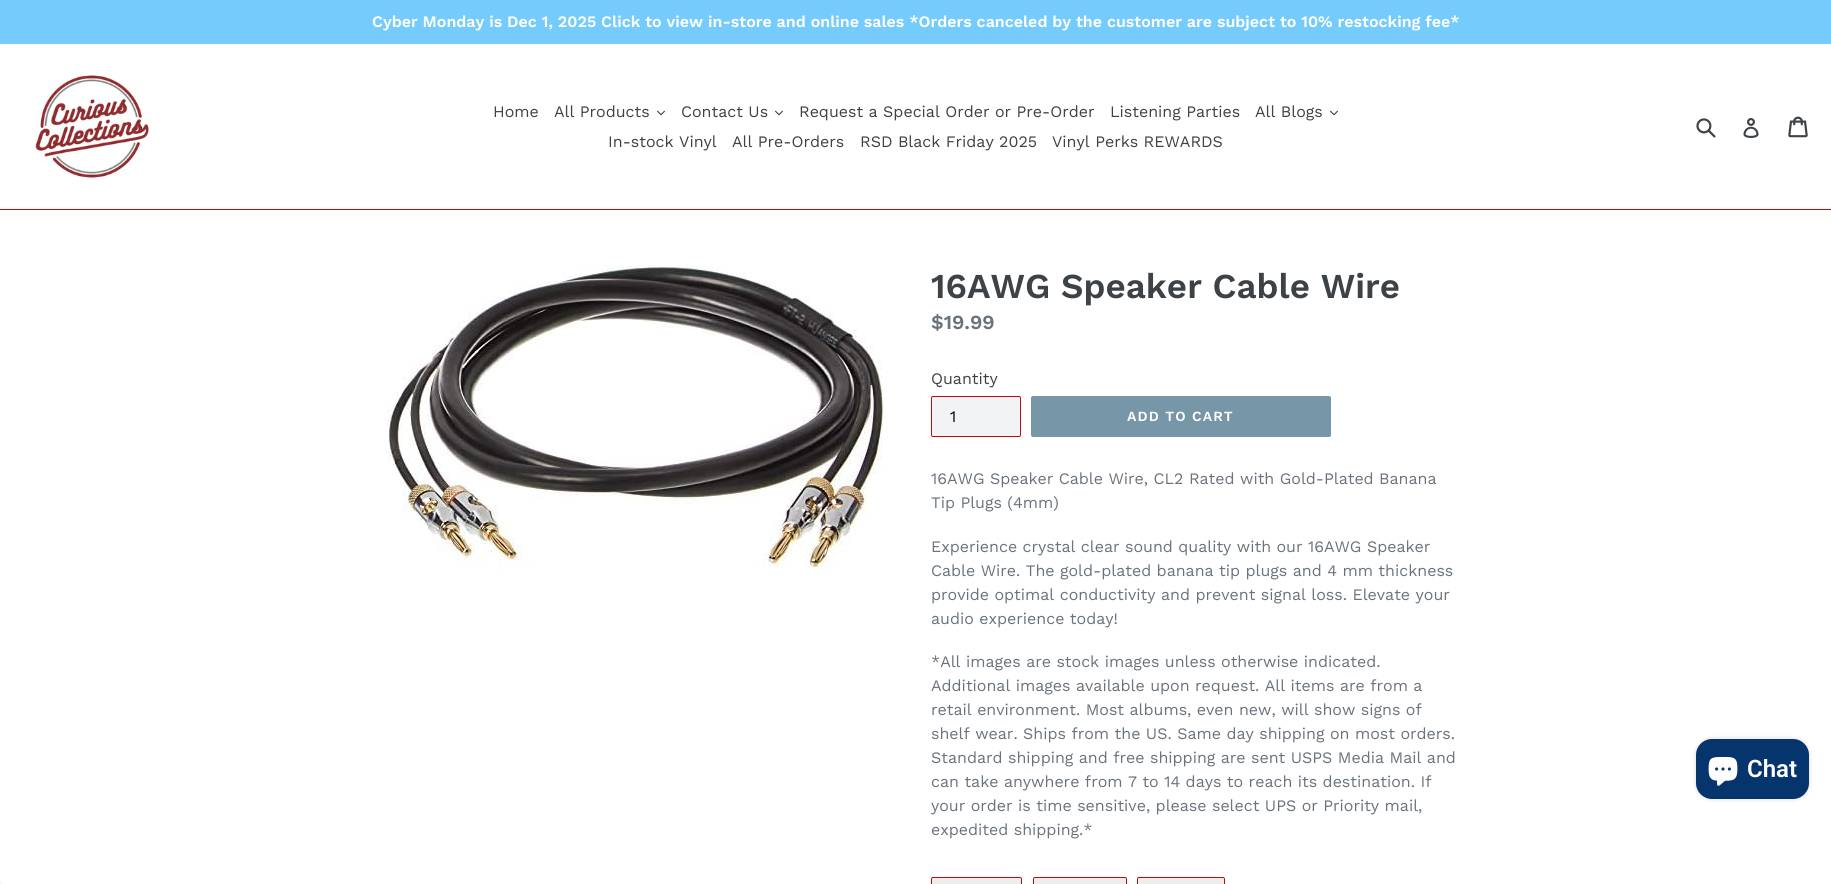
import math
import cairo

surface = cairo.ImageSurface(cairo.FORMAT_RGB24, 1831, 884)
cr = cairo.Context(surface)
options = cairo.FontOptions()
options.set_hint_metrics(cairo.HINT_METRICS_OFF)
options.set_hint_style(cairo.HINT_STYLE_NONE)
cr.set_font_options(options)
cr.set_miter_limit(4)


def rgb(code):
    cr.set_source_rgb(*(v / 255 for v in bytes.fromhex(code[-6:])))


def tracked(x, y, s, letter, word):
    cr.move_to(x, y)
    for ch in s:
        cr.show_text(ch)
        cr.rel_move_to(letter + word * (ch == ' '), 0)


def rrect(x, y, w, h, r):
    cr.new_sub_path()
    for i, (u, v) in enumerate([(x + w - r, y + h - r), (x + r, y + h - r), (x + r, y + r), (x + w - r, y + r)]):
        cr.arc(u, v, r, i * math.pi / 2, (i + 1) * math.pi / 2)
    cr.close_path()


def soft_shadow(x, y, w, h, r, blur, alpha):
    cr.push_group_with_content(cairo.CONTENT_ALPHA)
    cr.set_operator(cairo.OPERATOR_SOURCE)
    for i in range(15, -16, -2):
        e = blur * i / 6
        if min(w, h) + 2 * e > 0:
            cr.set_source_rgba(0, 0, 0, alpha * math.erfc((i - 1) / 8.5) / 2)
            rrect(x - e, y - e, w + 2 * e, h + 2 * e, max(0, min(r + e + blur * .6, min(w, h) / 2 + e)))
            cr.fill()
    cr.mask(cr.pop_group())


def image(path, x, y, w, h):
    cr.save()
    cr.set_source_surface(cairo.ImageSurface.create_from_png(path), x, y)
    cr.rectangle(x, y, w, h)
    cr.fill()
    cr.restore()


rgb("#ffffff")
cr.paint()
rgb("#75cbfb")
cr.rectangle(0, 0, 1831, 44)
cr.fill()
rgb("#c10b0b")
cr.rectangle(0, 209, 1831, 1)
cr.fill()
image("img/1.png", 35, 75, 117, 104)
image("img/2.png", 657, 110, 8, 6)
image("img/2.png", 775, 110, 8, 6)
image("img/2.png", 1330, 110, 8, 6)
image("img/3.png", 1696, 118, 20, 20)
image("img/4.png", 1743, 118, 16, 20)
image("img/5.png", 1788, 116, 20, 22)
image("img/6.png", 387, 265, 498, 304)
rgb("#f2f3f4")
rrect(931.5, 396.5, 89, 40, 1.5)
cr.fill_preserve()
rgb("#c10b0b")
cr.set_line_width(1)
cr.stroke()
rgb("#7796a8")
rrect(1031, 396, 300, 41, 2)
cr.fill()
rgb("#ededed")
rrect(931.5, 877.5, 90, 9, 1.5)
cr.fill_preserve()
rgb("#c10b0b")
cr.stroke()
rgb("#ededed")
rrect(1033.5, 877.5, 93, 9, 1.5)
cr.fill_preserve()
rgb("#c10b0b")
cr.stroke()
rgb("#ededed")
rrect(1137.5, 877.5, 87, 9, 1.5)
cr.fill_preserve()
rgb("#c10b0b")
cr.stroke()
rgb("#000000")
soft_shadow(1696, 739, 113, 60, 16, 2.5, 0.15)
rgb("#06356e")
rrect(1696, 739, 113, 60, 16)
cr.fill()
image("img/7.png", 1708, 757, 30, 29)
rgb("#f5f5f5")
cr.rectangle(0, 882, 2, 2)
cr.fill()
cr.select_font_face("Work Sans SemiBold")
cr.set_font_size(16)
rgb("#ffffff")
cr.move_to(372, 27)
cr.show_text("Cyber Monday is Dec 1, 2025 Click to view in-store and online sales *Orders canceled by the customer are subject to 10% restocking fee*")
cr.select_font_face("Work Sans")
rgb("#3d4246")
for x, y, s in [
    (493, 117, "Home"),
    (554, 117, "All Products"),
    (681, 117, "Contact Us"),
    (799, 117, "Request a Special Order or Pre-Order"),
    (1110, 117, "Listening Parties"),
    (1255, 117, "All Blogs"),
    (608, 147, "In-stock Vinyl"),
    (732, 147, "All Pre-Orders"),
    (860, 147, "RSD Black Friday 2025"),
    (1052, 147, "Vinyl Perks REWARDS"),
]:
    cr.move_to(x, y)
    cr.show_text(s)
cr.select_font_face("Work Sans SemiBold")
cr.set_font_size(35)
cr.move_to(931, 298)
cr.show_text("16AWG Speaker Cable Wire")
cr.set_font_size(20)
rgb("#6a737c")
cr.move_to(931, 329)
cr.show_text("$19.99")
cr.select_font_face("Work Sans")
cr.set_font_size(16)
rgb("#3d4246")
cr.move_to(931, 384)
cr.show_text("Quantity")
rgb("#000000")
cr.move_to(950, 422)
cr.show_text("1")
cr.select_font_face("Work Sans SemiBold")
cr.set_font_size(14)
rgb("#ffffff")
tracked(1127, 421, "ADD TO CART", 1.1, 0)
cr.select_font_face("Work Sans")
cr.set_font_size(16)
rgb("#6a737c")
for x, y, s in [
    (931, 484, "16AWG Speaker Cable Wire, CL2 Rated with Gold-Plated Banana"),
    (931, 508, "Tip Plugs (4mm)"),
    (931, 552, "Experience crystal clear sound quality with our 16AWG Speaker"),
    (931, 576, "Cable Wire. The gold-plated banana tip plugs and 4 mm thickness"),
    (931, 600, "provide optimal conductivity and prevent signal loss. Elevate your"),
    (931, 624, "audio experience today!"),
    (931, 667, "*All images are stock images unless otherwise indicated."),
    (931, 691, "Additional images available upon request. All items are from a"),
    (931, 715, "retail environment. Most albums, even new, will show signs of"),
    (931, 739, "shelf wear. Ships from the US. Same day shipping on most orders."),
    (931, 763, "Standard shipping and free shipping are sent USPS Media Mail and"),
    (931, 787, "can take anywhere from 7 to 14 days to reach its destination. If"),
    (931, 811, "your order is time sensitive, please select UPS or Priority mail,"),
    (931, 835, "expedited shipping.*"),
]:
    cr.move_to(x, y)
    cr.show_text(s)
cr.select_font_face("Roboto SemiBold")
cr.set_font_size(24)
rgb("#ffffff")
cr.move_to(1747, 777)
cr.show_text("Chat")
surface.write_to_png("page.png")
